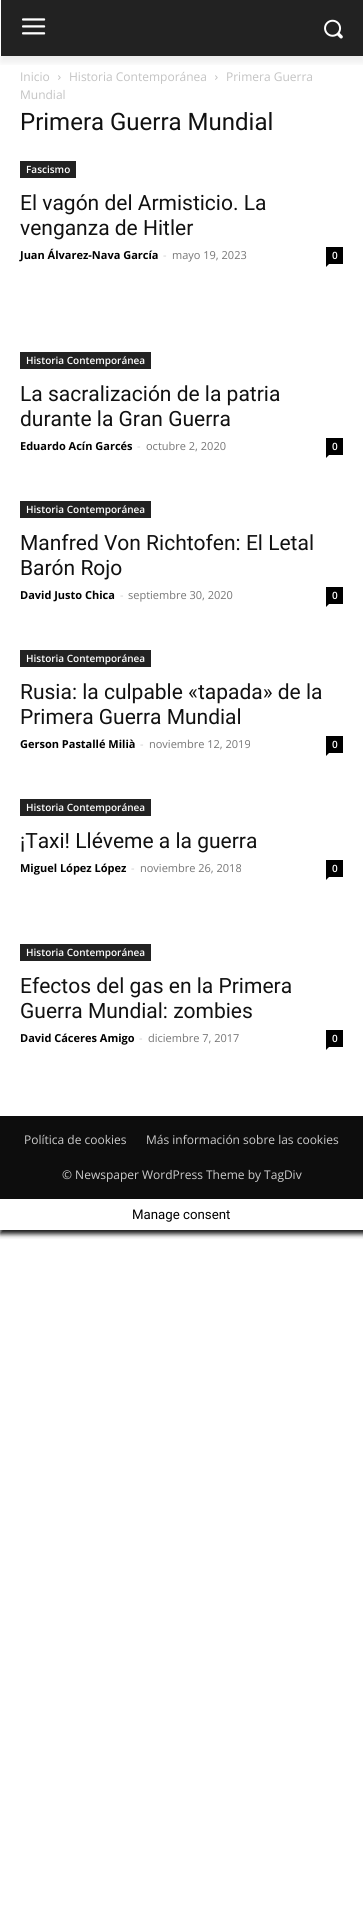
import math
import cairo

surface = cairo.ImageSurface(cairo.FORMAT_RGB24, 363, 1924)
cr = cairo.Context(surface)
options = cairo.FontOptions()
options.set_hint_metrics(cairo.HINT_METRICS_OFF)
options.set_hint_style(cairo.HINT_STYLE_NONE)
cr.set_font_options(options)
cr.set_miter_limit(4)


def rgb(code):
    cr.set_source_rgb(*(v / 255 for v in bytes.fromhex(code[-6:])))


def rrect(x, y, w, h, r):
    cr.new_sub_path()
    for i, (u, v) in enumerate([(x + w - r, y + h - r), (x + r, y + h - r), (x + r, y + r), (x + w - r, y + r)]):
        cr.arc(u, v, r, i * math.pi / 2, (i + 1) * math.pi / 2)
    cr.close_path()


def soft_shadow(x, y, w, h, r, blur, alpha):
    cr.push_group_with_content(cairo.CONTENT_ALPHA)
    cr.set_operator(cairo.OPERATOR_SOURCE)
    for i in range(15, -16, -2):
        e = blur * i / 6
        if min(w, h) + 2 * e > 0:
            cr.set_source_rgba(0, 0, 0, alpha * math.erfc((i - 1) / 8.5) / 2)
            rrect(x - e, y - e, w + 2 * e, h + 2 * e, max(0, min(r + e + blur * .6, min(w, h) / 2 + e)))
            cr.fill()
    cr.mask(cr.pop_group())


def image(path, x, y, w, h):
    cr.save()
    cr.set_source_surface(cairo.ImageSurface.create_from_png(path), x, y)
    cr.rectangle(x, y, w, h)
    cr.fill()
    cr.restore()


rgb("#ffffff")
cr.paint()
rgb("#222222")
cr.rectangle(1, 0, 362, 56)
cr.fill()
image("img/1.png", 22, 18, 24, 17)
image("img/2.png", 324, 19, 19, 20)
cr.save()
cr.rectangle(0, 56, 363, 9)
cr.clip()
rgb("#000000")
soft_shadow(1, 6, 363, 56, 0, 4, 0.08)
cr.restore()
image("img/3.png", 58, 75, 3, 5)
image("img/3.png", 215, 75, 3, 5)
cr.rectangle(20, 161, 56, 17)
cr.fill()
rgb("#000000")
cr.rectangle(326, 247, 17, 17)
cr.fill()
cr.new_path()
cr.move_to(326, 264)
cr.line_to(329, 264)
cr.line_to(326, 267)
cr.close_path()
cr.fill()
rgb("#222222")
cr.rectangle(20, 352, 131, 17)
cr.fill()
rgb("#000000")
cr.rectangle(326, 438, 17, 17)
cr.fill()
cr.new_path()
cr.move_to(326, 455)
cr.line_to(329, 455)
cr.line_to(326, 458)
cr.close_path()
cr.fill()
rgb("#222222")
cr.rectangle(20, 501, 131, 17)
cr.fill()
rgb("#000000")
cr.rectangle(326, 587, 17, 17)
cr.fill()
cr.new_path()
cr.move_to(326, 604)
cr.line_to(329, 604)
cr.line_to(326, 607)
cr.close_path()
cr.fill()
rgb("#222222")
cr.rectangle(20, 650, 131, 17)
cr.fill()
rgb("#000000")
cr.rectangle(326, 736, 17, 17)
cr.fill()
cr.new_path()
cr.move_to(326, 753)
cr.line_to(329, 753)
cr.line_to(326, 756)
cr.close_path()
cr.fill()
rgb("#222222")
cr.rectangle(20, 799, 131, 17)
cr.fill()
rgb("#000000")
cr.rectangle(326, 860, 17, 17)
cr.fill()
cr.new_path()
cr.move_to(326, 877)
cr.line_to(329, 877)
cr.line_to(326, 880)
cr.close_path()
cr.fill()
rgb("#222222")
cr.rectangle(20, 944, 131, 17)
cr.fill()
rgb("#000000")
cr.rectangle(326, 1030, 17, 17)
cr.fill()
cr.new_path()
cr.move_to(326, 1047)
cr.line_to(329, 1047)
cr.line_to(326, 1050)
cr.close_path()
cr.fill()
cr.save()
cr.rectangle(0, 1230, 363, 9)
cr.clip()
rgb("#161616")
soft_shadow(0, 1199, 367, 35, 0, 2.5, 1)
cr.restore()
rgb("#0d0d0d")
cr.rectangle(0, 1116, 363, 83)
cr.fill()
cr.select_font_face("Open Sans")
cr.set_font_size(12)
rgb("#c3c3c3")
for x, y, s in [
    (20, 81, "Inicio"),
    (69, 81, "Historia Contemporánea"),
    (226, 81, "Primera Guerra"),
    (20, 99, "Mundial"),
]:
    cr.move_to(x, y)
    cr.show_text(s)
cr.select_font_face("Roboto")
cr.set_font_size(24)
rgb("#111111")
cr.move_to(20, 130)
cr.show_text("Primera Guerra Mundial")
cr.select_font_face("Open Sans SemiBold")
cr.set_font_size(10)
rgb("#ffffff")
cr.move_to(26, 173)
cr.show_text("Fascismo")
cr.select_font_face("Roboto")
cr.set_font_size(21)
rgb("#111111")
cr.move_to(20, 210)
cr.show_text("El vagón del Armisticio. La")
cr.move_to(20, 235)
cr.show_text("venganza de Hitler")
cr.select_font_face("Open Sans", cairo.FONT_SLANT_NORMAL, cairo.FONT_WEIGHT_BOLD)
cr.set_font_size(11)
rgb("#000000")
cr.move_to(20, 259)
cr.show_text("Juan Álvarez-Nava García")
cr.select_font_face("Open Sans")
rgb("#cccccc")
cr.move_to(163, 259)
cr.show_text("-")
rgb("#767676")
cr.move_to(172, 259)
cr.show_text("mayo 19, 2023")
cr.select_font_face("Open Sans SemiBold")
cr.set_font_size(10)
rgb("#ffffff")
cr.move_to(332, 259)
cr.show_text("0")
cr.move_to(26, 364)
cr.show_text("Historia Contemporánea")
cr.select_font_face("Roboto")
cr.set_font_size(21)
rgb("#111111")
cr.move_to(20, 401)
cr.show_text("La sacralización de la patria")
cr.move_to(20, 426)
cr.show_text("durante la Gran Guerra")
cr.select_font_face("Open Sans", cairo.FONT_SLANT_NORMAL, cairo.FONT_WEIGHT_BOLD)
cr.set_font_size(11)
rgb("#000000")
cr.move_to(20, 450)
cr.show_text("Eduardo Acín Garcés")
cr.select_font_face("Open Sans")
rgb("#cccccc")
cr.move_to(137, 450)
cr.show_text("-")
rgb("#767676")
cr.move_to(146, 450)
cr.show_text("octubre 2, 2020")
cr.select_font_face("Open Sans SemiBold")
cr.set_font_size(10)
rgb("#ffffff")
cr.move_to(332, 450)
cr.show_text("0")
cr.move_to(26, 513)
cr.show_text("Historia Contemporánea")
cr.select_font_face("Roboto")
cr.set_font_size(21)
rgb("#111111")
cr.move_to(20, 550)
cr.show_text("Manfred Von Richtofen: El Letal")
cr.move_to(20, 575)
cr.show_text("Barón Rojo")
cr.select_font_face("Open Sans", cairo.FONT_SLANT_NORMAL, cairo.FONT_WEIGHT_BOLD)
cr.set_font_size(11)
rgb("#000000")
cr.move_to(20, 599)
cr.show_text("David Justo Chica")
cr.select_font_face("Open Sans")
rgb("#cccccc")
cr.move_to(120, 599)
cr.show_text("-")
rgb("#767676")
cr.move_to(128, 599)
cr.show_text("septiembre 30, 2020")
cr.select_font_face("Open Sans SemiBold")
cr.set_font_size(10)
rgb("#ffffff")
cr.move_to(332, 599)
cr.show_text("0")
cr.move_to(26, 662)
cr.show_text("Historia Contemporánea")
cr.select_font_face("Roboto")
cr.set_font_size(21)
rgb("#111111")
cr.move_to(20, 699)
cr.show_text("Rusia: la culpable «tapada» de la")
cr.move_to(20, 724)
cr.show_text("Primera Guerra Mundial")
cr.select_font_face("Open Sans", cairo.FONT_SLANT_NORMAL, cairo.FONT_WEIGHT_BOLD)
cr.set_font_size(11)
rgb("#000000")
cr.move_to(20, 748)
cr.show_text("Gerson Pastallé Milià")
cr.select_font_face("Open Sans")
rgb("#cccccc")
cr.move_to(140, 748)
cr.show_text("-")
rgb("#767676")
cr.move_to(149, 748)
cr.show_text("noviembre 12, 2019")
cr.select_font_face("Open Sans SemiBold")
cr.set_font_size(10)
rgb("#ffffff")
cr.move_to(332, 748)
cr.show_text("0")
cr.move_to(26, 811)
cr.show_text("Historia Contemporánea")
cr.select_font_face("Roboto")
cr.set_font_size(21)
rgb("#111111")
cr.move_to(20, 848)
cr.show_text("¡Taxi! Lléveme a la guerra")
cr.select_font_face("Open Sans", cairo.FONT_SLANT_NORMAL, cairo.FONT_WEIGHT_BOLD)
cr.set_font_size(11)
rgb("#000000")
cr.move_to(20, 872)
cr.show_text("Miguel López López")
cr.select_font_face("Open Sans")
rgb("#cccccc")
cr.move_to(131, 872)
cr.show_text("-")
rgb("#767676")
cr.move_to(140, 872)
cr.show_text("noviembre 26, 2018")
cr.select_font_face("Open Sans SemiBold")
cr.set_font_size(10)
rgb("#ffffff")
cr.move_to(332, 872)
cr.show_text("0")
cr.move_to(26, 956)
cr.show_text("Historia Contemporánea")
cr.select_font_face("Roboto")
cr.set_font_size(21)
rgb("#111111")
cr.move_to(20, 993)
cr.show_text("Efectos del gas en la Primera")
cr.move_to(20, 1018)
cr.show_text("Guerra Mundial: zombies")
cr.select_font_face("Open Sans", cairo.FONT_SLANT_NORMAL, cairo.FONT_WEIGHT_BOLD)
cr.set_font_size(11)
rgb("#000000")
cr.move_to(20, 1042)
cr.show_text("David Cáceres Amigo")
cr.select_font_face("Open Sans")
rgb("#cccccc")
cr.move_to(139, 1042)
cr.show_text("-")
rgb("#767676")
cr.move_to(148, 1042)
cr.show_text("diciembre 7, 2017")
cr.select_font_face("Open Sans SemiBold")
cr.set_font_size(10)
rgb("#ffffff")
cr.move_to(332, 1042)
cr.show_text("0")
cr.select_font_face("Open Sans")
cr.set_font_size(12)
rgb("#cccccc")
for x, y, s in [
    (24, 1144, "Política de cookies"),
    (146, 1144, "Más información sobre las cookies"),
    (62, 1179, "© Newspaper WordPress Theme by TagDiv"),
]:
    cr.move_to(x, y)
    cr.show_text(s)
cr.select_font_face("Roboto")
cr.set_font_size(13.25)
rgb("#000000")
cr.move_to(132, 1219)
cr.show_text("Manage consent")
surface.write_to_png("page.png")
